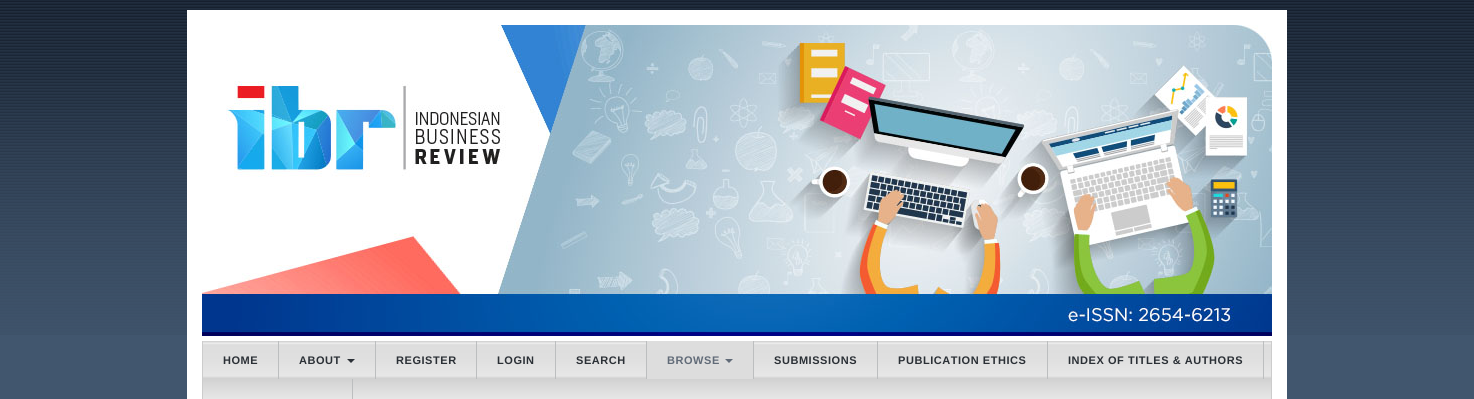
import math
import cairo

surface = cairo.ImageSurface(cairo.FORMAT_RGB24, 1474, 399)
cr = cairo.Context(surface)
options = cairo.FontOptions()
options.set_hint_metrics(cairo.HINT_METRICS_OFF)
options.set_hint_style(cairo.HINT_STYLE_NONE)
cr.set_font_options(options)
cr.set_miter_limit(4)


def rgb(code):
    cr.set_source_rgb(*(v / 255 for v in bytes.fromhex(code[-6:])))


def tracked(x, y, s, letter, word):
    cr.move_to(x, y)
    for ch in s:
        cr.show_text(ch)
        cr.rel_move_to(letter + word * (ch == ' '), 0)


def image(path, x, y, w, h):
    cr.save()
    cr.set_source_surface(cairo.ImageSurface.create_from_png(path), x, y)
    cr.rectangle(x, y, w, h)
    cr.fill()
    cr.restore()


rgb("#41566e")
cr.paint()
image("img/1.png", 0, 0, 1474, 335)
rgb("#ffffff")
cr.rectangle(187, 10, 1100, 389)
cr.fill()
image("img/2.png", 202, 25, 1070, 311)
gradient = cairo.LinearGradient(737, 341, 737, 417)
gradient.add_color_stop_rgba(0, 0.8, 0.8, 0.8, 1)
gradient.add_color_stop_rgba(0.03, 0.929, 0.929, 0.929, 1)
gradient.add_color_stop_rgba(0.05, 0.867, 0.867, 0.867, 1)
gradient.add_color_stop_rgba(0.26, 0.878, 0.878, 0.878, 1)
gradient.add_color_stop_rgba(0.46, 0.906, 0.906, 0.906, 1)
gradient.add_color_stop_rgba(0.49, 0.82, 0.82, 0.82, 1)
gradient.add_color_stop_rgba(0.82, 0.922, 0.922, 0.922, 1)
gradient.add_color_stop_rgba(0.97, 0.953, 0.953, 0.953, 1)
gradient.add_color_stop_rgba(1, 0.8, 0.8, 0.8, 1)
cr.set_source(gradient)
cr.rectangle(203, 341, 1068, 58)
cr.fill()
for x, y, w, h, color in [
    (1271, 341, 1, 58, "#cccccc"),
    (202, 341, 1, 58, "#cccccc"),
    (278, 341, 1, 38, "#bcbebf"),
    (375, 341, 1, 38, "#bcbebf"),
]:
    rgb(color)
    cr.rectangle(x, y, w, h)
    cr.fill()
rgb("#2b3036")
cr.new_path()
cr.move_to(347, 359)
cr.line_to(355, 359)
cr.line_to(351, 363)
cr.close_path()
cr.fill()
for x, y, w, h, color in [
    (476, 341, 1, 38, "#bcbebf"),
    (555, 341, 1, 38, "#bcbebf"),
    (646, 341, 1, 38, "#bcbebf"),
    (647, 341, 106, 38, "#dddddd"),
    (753, 341, 1, 38, "#bcbebf"),
]:
    rgb(color)
    cr.rectangle(x, y, w, h)
    cr.fill()
rgb("#616b78")
cr.new_path()
cr.move_to(725, 359)
cr.line_to(733, 359)
cr.line_to(729, 363)
cr.close_path()
cr.fill()
for x, y, w, h, color in [
    (877, 341, 1, 38, "#bcbebf"),
    (1047, 341, 1, 38, "#bcbebf"),
    (1263, 341, 1, 38, "#bcbebf"),
    (352, 379, 1, 20, "#bcbebf"),
]:
    rgb(color)
    cr.rectangle(x, y, w, h)
    cr.fill()
cr.select_font_face("Liberation Sans", cairo.FONT_SLANT_NORMAL, cairo.FONT_WEIGHT_BOLD)
cr.set_font_size(11)
rgb("#2b3036")
for x, y, s in [
    (223, 364, "HOME"),
    (299, 364, "ABOUT"),
    (396, 364, "REGISTER"),
    (497, 364, "LOGIN"),
    (576, 364, "SEARCH"),
]:
    tracked(x, y, s, 0.55, 0)
rgb("#616b78")
tracked(667, 364, "BROWSE", 0.55, 0)
rgb("#2b3036")
for x, y, s in [
    (774, 364, "SUBMISSIONS"),
    (898, 364, "PUBLICATION ETHICS"),
    (1068, 364, "INDEX OF TITLES & AUTHORS"),
]:
    tracked(x, y, s, 0.55, 0)
surface.write_to_png("page.png")
